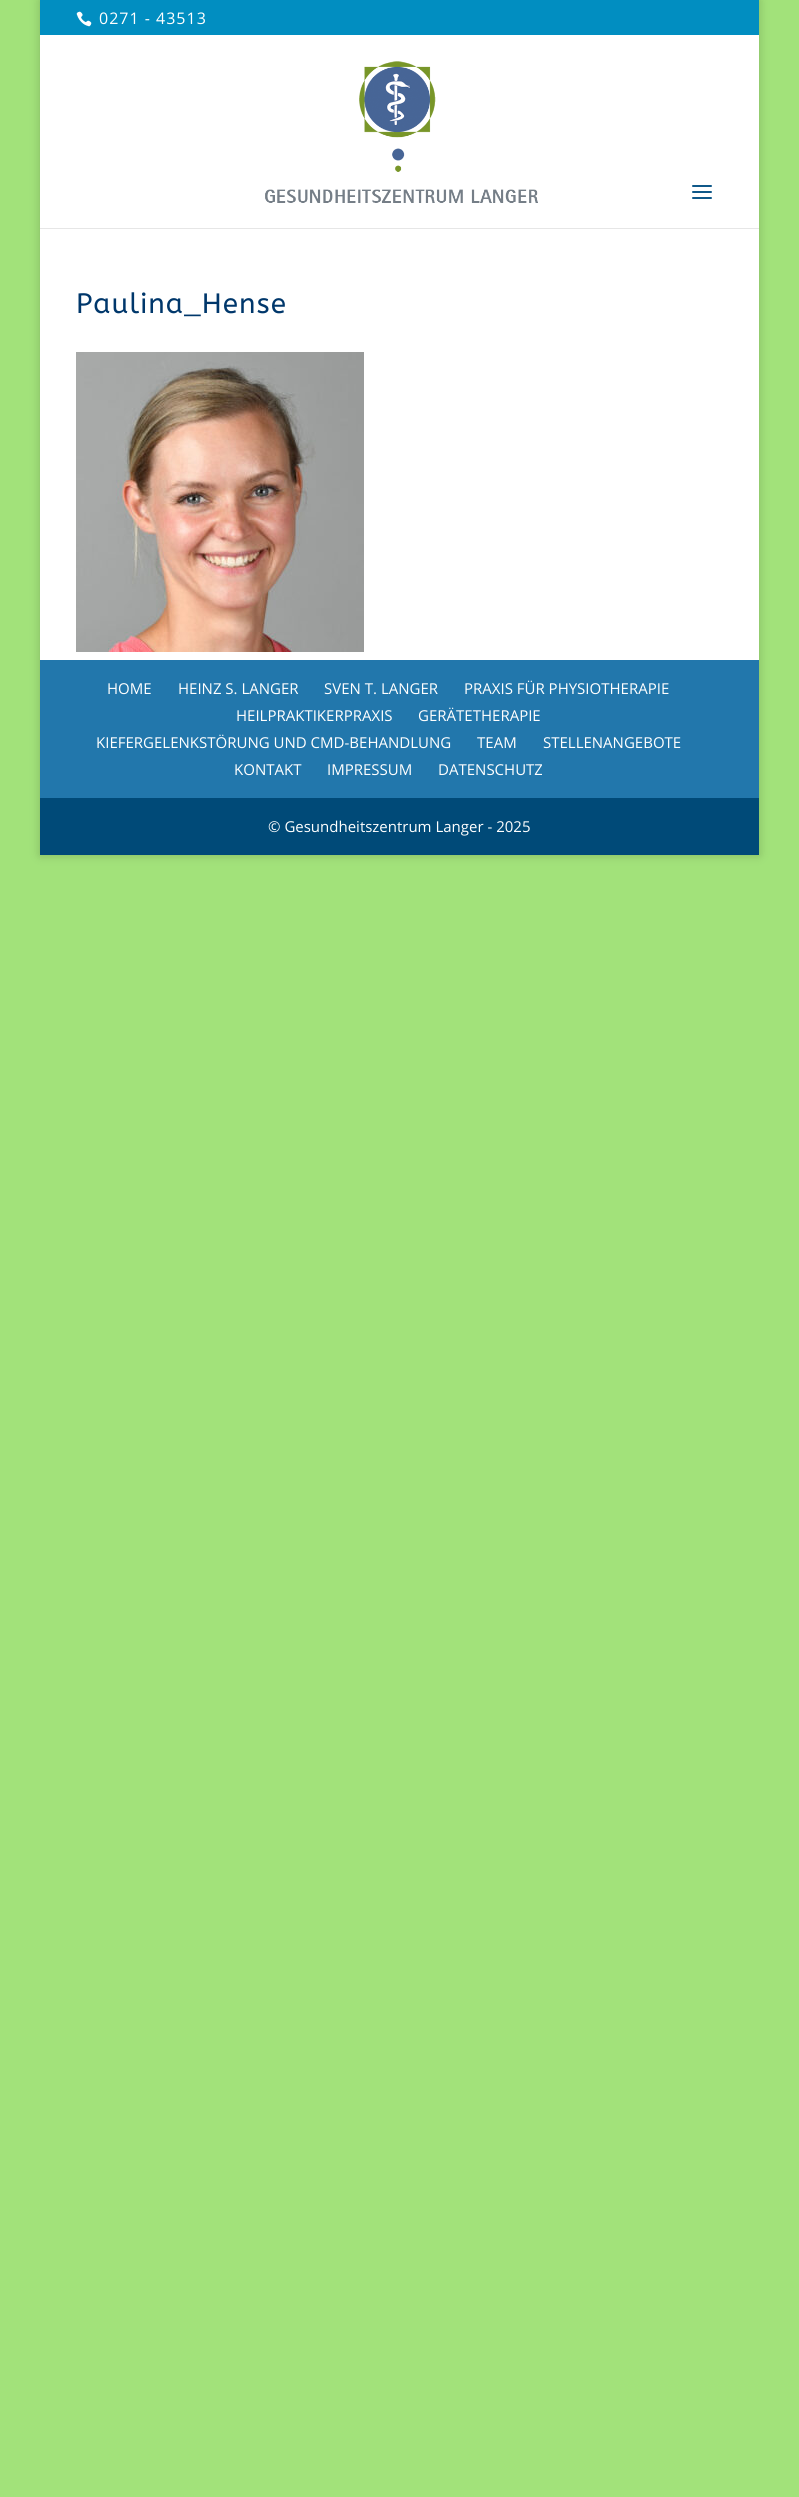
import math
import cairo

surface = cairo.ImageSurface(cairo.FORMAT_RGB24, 799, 2497)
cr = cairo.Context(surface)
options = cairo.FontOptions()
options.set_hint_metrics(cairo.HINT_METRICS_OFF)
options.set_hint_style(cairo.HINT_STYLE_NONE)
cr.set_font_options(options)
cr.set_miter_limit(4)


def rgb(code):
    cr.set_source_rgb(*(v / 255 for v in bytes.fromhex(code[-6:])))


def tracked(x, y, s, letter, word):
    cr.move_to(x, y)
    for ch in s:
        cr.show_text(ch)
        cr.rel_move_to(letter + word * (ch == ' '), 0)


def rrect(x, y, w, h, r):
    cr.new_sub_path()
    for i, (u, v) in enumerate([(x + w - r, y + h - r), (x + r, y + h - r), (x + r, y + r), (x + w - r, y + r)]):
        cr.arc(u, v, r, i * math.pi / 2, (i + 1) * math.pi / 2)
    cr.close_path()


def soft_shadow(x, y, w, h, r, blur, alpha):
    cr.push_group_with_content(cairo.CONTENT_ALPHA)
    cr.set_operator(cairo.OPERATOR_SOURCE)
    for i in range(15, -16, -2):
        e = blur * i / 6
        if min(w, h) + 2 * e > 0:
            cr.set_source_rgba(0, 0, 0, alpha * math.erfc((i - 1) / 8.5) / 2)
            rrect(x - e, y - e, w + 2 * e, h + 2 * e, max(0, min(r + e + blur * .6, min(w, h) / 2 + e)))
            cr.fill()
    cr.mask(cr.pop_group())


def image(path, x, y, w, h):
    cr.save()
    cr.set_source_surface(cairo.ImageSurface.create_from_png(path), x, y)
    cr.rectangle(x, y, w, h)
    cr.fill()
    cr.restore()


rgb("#a2e27a")
cr.paint()
rgb("#000000")
soft_shadow(40, 0, 719, 855, 0, 5, 0.2)
rgb("#018ec1")
cr.rectangle(40, 0, 719, 35)
cr.fill()
image("img/1.png", 76, 11, 16, 16)
rgb("#e6e6e6")
cr.rectangle(40, 228, 719, 1)
cr.fill()
rgb("#ffffff")
cr.rectangle(40, 35, 719, 193)
cr.fill()
image("img/2.png", 265, 61, 273, 142)
image("img/3.png", 692, 185, 20, 14)
cr.rectangle(40, 229, 719, 431)
cr.fill()
image("img/4.png", 76, 352, 288, 300)
rgb("#2277ac")
cr.rectangle(40, 660, 719, 138)
cr.fill()
rgb("#004a78")
cr.rectangle(40, 798, 719, 57)
cr.fill()
cr.select_font_face("Open Sans")
cr.set_font_size(16)
rgb("#ffffff")
tracked(99, 24, "0271 - 43513", 1, 0)
cr.select_font_face("ABeeZee")
cr.set_font_size(28)
rgb("#00376b")
tracked(76, 313, "Paulina_Hense", 1, 0)
cr.select_font_face("Open Sans")
cr.set_font_size(15)
rgb("#ffffff")
for x, y, s in [
    (107, 694, "HOME"),
    (178, 694, "HEINZ S. LANGER"),
    (324, 694, "SVEN T. LANGER"),
    (464, 694, "PRAXIS FÜR PHYSIOTHERAPIE"),
    (236, 721, "HEILPRAKTIKERPRAXIS"),
    (418, 721, "GERÄTETHERAPIE"),
    (96, 748, "KIEFERGELENKSTÖRUNG UND CMD-BEHANDLUNG"),
    (477, 748, "TEAM"),
    (543, 748, "STELLENANGEBOTE"),
    (234, 775, "KONTAKT"),
    (327, 775, "IMPRESSUM"),
    (438, 775, "DATENSCHUTZ"),
    (268, 832, "© Gesundheitszentrum Langer - 2025"),
]:
    cr.move_to(x, y)
    cr.show_text(s)
surface.write_to_png("page.png")
